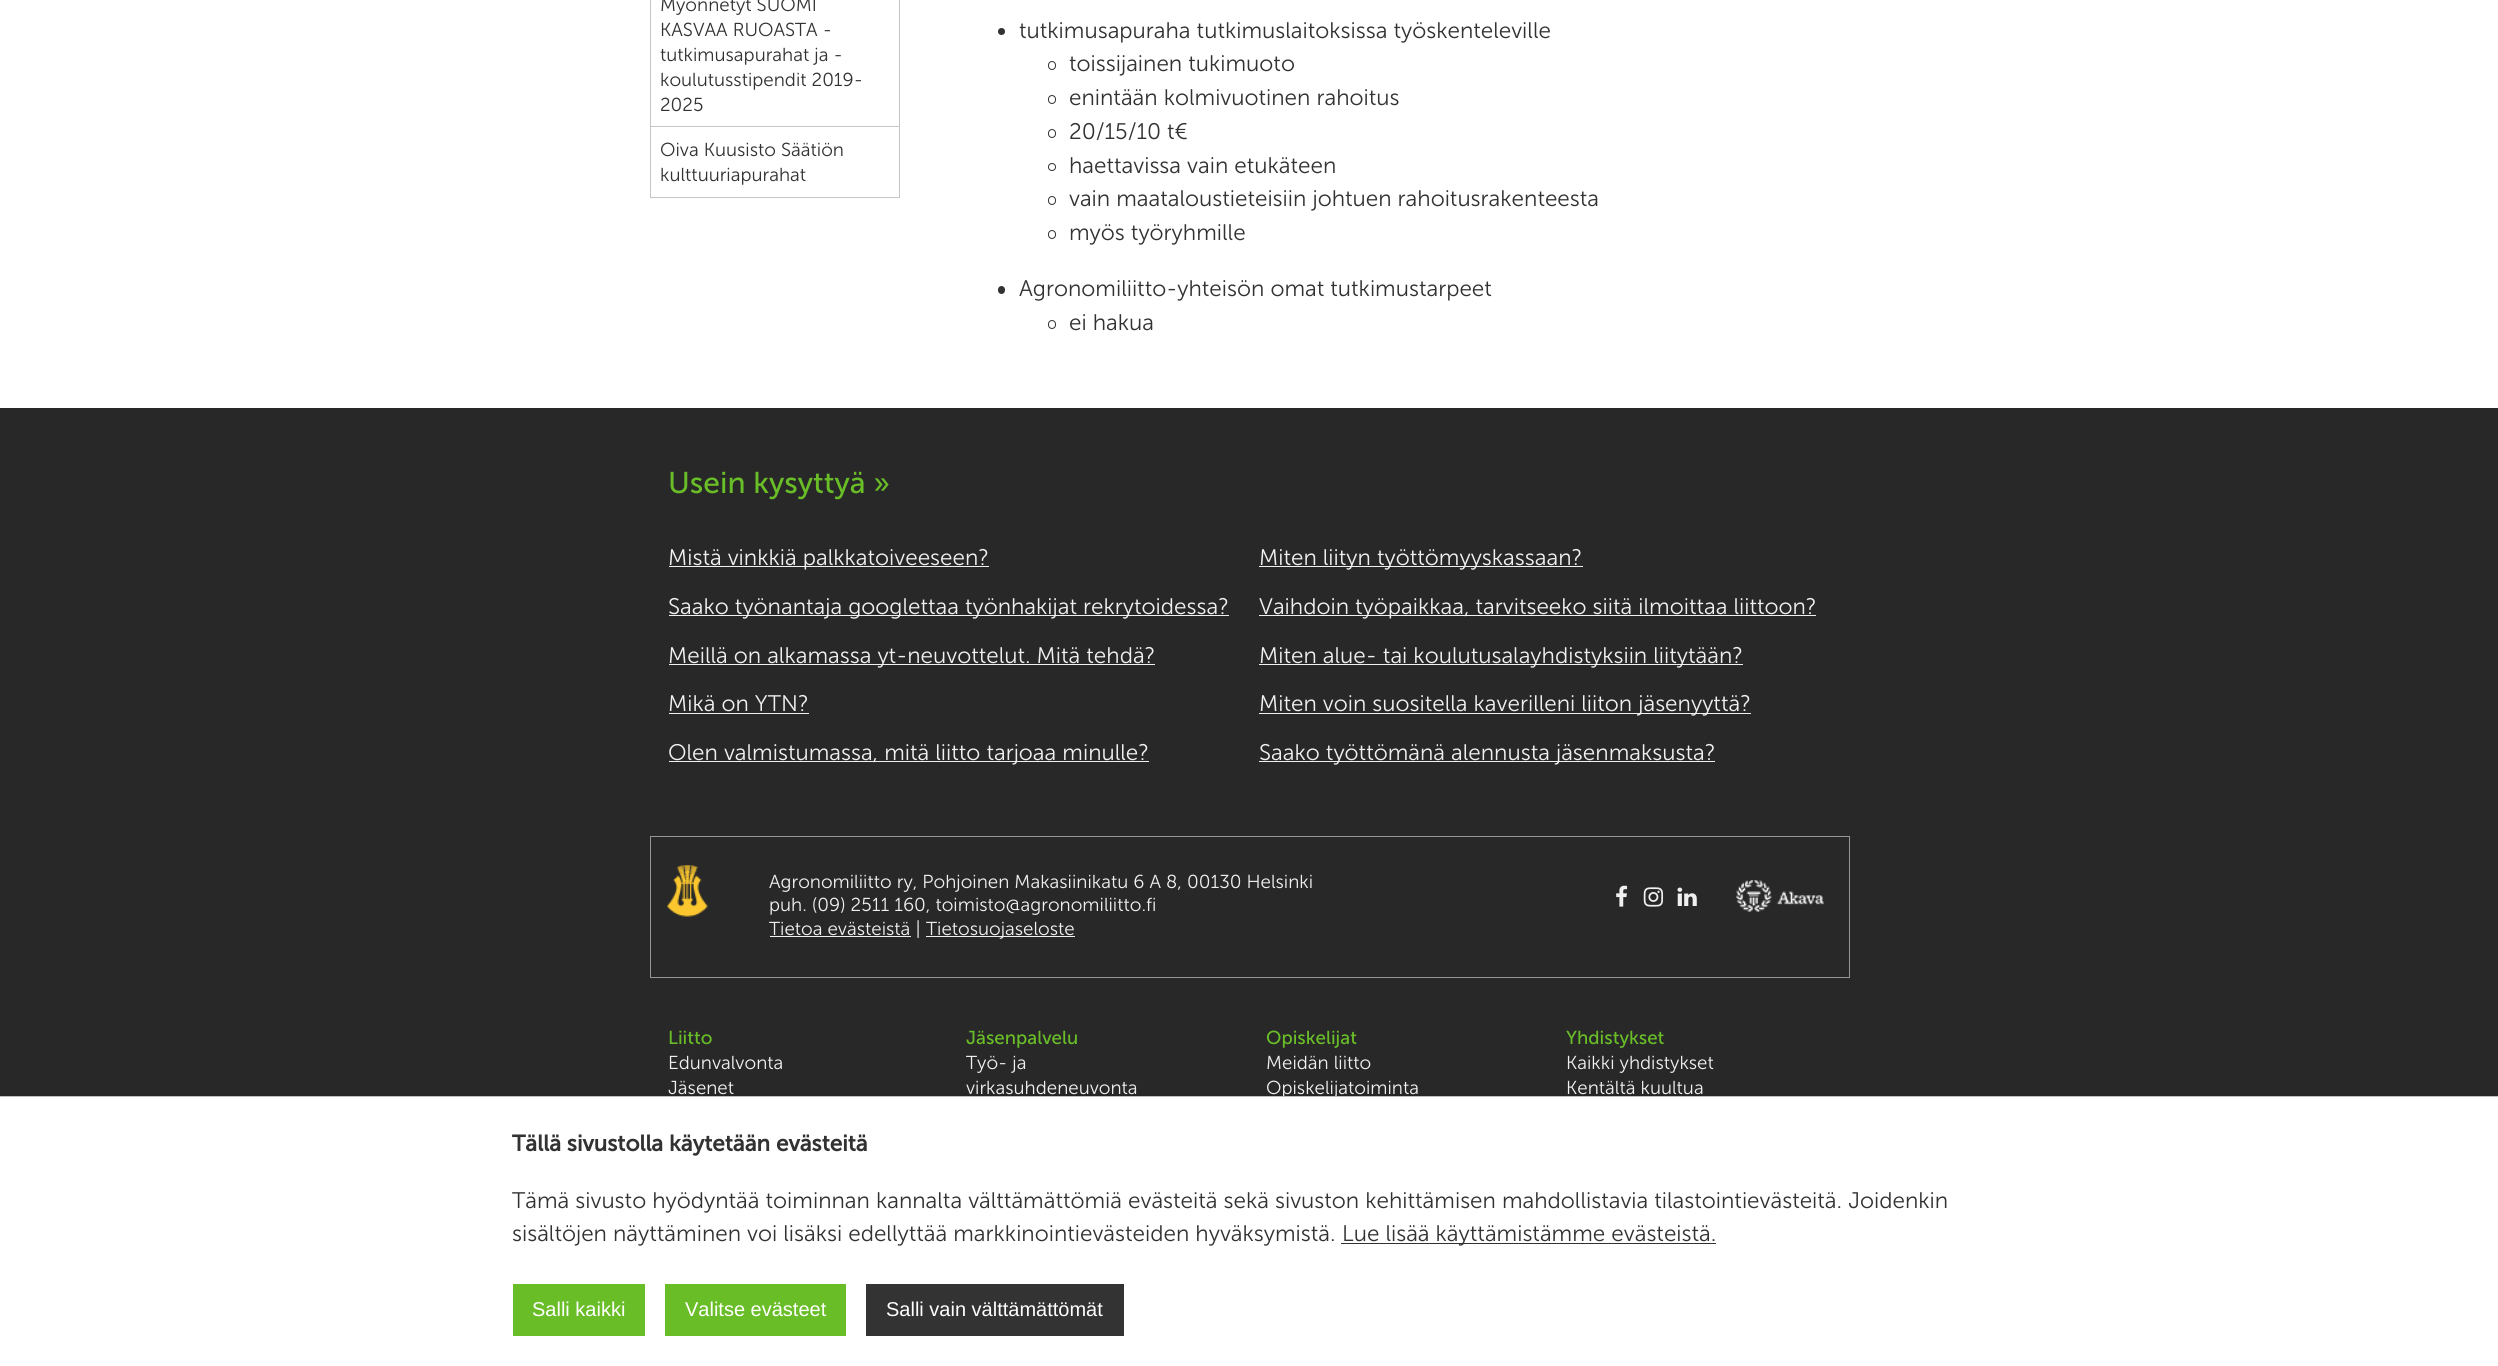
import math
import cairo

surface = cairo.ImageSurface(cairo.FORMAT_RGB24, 2498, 1366)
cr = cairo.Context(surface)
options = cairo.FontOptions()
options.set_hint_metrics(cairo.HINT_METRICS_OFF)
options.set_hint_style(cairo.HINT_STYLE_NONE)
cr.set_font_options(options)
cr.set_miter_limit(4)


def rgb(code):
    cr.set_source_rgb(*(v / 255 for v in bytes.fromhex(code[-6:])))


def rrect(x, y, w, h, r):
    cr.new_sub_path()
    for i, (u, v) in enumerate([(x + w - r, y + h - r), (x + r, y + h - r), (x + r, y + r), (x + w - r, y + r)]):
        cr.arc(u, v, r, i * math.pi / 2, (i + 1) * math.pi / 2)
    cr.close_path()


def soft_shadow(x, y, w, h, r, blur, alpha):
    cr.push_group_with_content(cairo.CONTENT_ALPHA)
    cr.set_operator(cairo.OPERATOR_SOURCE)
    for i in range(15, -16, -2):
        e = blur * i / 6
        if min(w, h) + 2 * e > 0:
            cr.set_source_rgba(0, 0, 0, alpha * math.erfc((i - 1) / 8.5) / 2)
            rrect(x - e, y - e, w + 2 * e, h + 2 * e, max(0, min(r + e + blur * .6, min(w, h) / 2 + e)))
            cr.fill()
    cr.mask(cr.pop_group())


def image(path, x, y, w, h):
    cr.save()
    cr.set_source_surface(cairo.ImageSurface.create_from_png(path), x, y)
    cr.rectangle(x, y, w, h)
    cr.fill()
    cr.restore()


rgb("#ffffff")
cr.paint()
cr.rectangle(650.5, -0.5, 249, 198)
rgb("#c5c5c5")
cr.set_line_width(1)
cr.stroke()
cr.rectangle(651, 126, 248, 1)
cr.fill()
rgb("#323232")
cr.arc(1001.5, 31.5, 3.5, 0, 2 * math.pi)
cr.fill()
rrect(1048.5, 61.5, 7, 8, 3.5)
cr.stroke()
rrect(1048.5, 95.5, 7, 8, 3.5)
cr.stroke()
rrect(1048.5, 129.5, 7, 8, 3.5)
cr.stroke()
cr.arc(1052, 167, 3.5, 0, 2 * math.pi)
cr.stroke()
rrect(1048.5, 196.5, 7, 8, 3.5)
cr.stroke()
rrect(1048.5, 230.5, 7, 8, 3.5)
cr.stroke()
rrect(998, 286, 7, 8, 3.5)
cr.fill()
rrect(1048.5, 320.5, 7, 8, 3.5)
cr.stroke()
for x, y, w, h, color in [
    (0, 408, 2498, 688, "#282828"),
    (669, 566, 320, 1, "#f0f0f0"),
    (669, 615, 560, 1, "#f0f0f0"),
    (669, 664, 486, 1, "#f0f0f0"),
    (669, 713, 140, 1, "#f0f0f0"),
    (669, 761, 480, 1, "#f0f0f0"),
    (1259, 566, 324, 1, "#f0f0f0"),
    (1259, 615, 557, 1, "#f0f0f0"),
    (1259, 664, 484, 1, "#f0f0f0"),
    (1259, 713, 492, 1, "#f0f0f0"),
    (1259, 761, 456, 1, "#f0f0f0"),
]:
    rgb(color)
    cr.rectangle(x, y, w, h)
    cr.fill()
cr.rectangle(650.5, 836.5, 1199, 141)
rgb("#959595")
cr.stroke()
image("img/1.png", 667, 865, 41, 52)
rgb("#f0f0f0")
cr.rectangle(770, 936, 141, 1)
cr.fill()
cr.rectangle(926, 936, 149, 1)
cr.fill()
image("img/2.png", 1616, 885, 12, 22)
image("img/3.png", 1643, 887, 21, 20)
image("img/4.png", 1677, 887, 20, 19)
image("img/5.png", 1736, 880, 88, 32)
rgb("#000000")
soft_shadow(0, 1096, 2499, 270, 0, 5, 0.15)
cr.select_font_face("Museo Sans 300 Light")
cr.set_font_size(18.75)
rgb("#323232")
for x, y, s in [
    (660, 11, "Myönnetyt SUOMI"),
    (660, 36, "KASVAA RUOASTA -"),
    (660, 61, "tutkimusapurahat ja -"),
    (660, 86, "koulutusstipendit 2019-"),
    (660, 111, "2025"),
    (660, 156, "Oiva Kuusisto Säätiön"),
    (660, 181, "kulttuuriapurahat"),
]:
    cr.move_to(x, y)
    cr.show_text(s)
cr.set_font_size(22.5)
for x, y, s in [
    (1019, 38, "tutkimusapuraha tutkimuslaitoksissa työskenteleville"),
    (1069, 71, "toissijainen tukimuoto"),
    (1069, 105, "enintään kolmivuotinen rahoitus"),
    (1069, 139, "20/15/10 t€"),
    (1069, 173, "haettavissa vain etukäteen"),
    (1069, 206, "vain maataloustieteisiin johtuen rahoitusrakenteesta"),
    (1069, 240, "myös työryhmille"),
    (1019, 296, "Agronomiliitto-yhteisön omat tutkimustarpeet"),
    (1069, 330, "ei hakua"),
]:
    cr.move_to(x, y)
    cr.show_text(s)
cr.select_font_face("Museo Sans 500")
cr.set_font_size(30)
rgb("#69be28")
cr.move_to(668, 493)
cr.show_text("Usein kysyttyä »")
cr.select_font_face("Museo Sans 300 Light")
cr.set_font_size(22.5)
rgb("#f0f0f0")
for x, y, s in [
    (668, 565, "Mistä vinkkiä palkkatoiveeseen?"),
    (668, 614, "Saako työnantaja googlettaa työnhakijat rekrytoidessa?"),
    (668, 663, "Meillä on alkamassa yt-neuvottelut. Mitä tehdä?"),
    (668, 711, "Mikä on YTN?"),
    (668, 760, "Olen valmistumassa, mitä liitto tarjoaa minulle?"),
    (1259, 565, "Miten liityn työttömyyskassaan?"),
    (1259, 614, "Vaihdoin työpaikkaa, tarvitseeko siitä ilmoittaa liittoon?"),
    (1259, 663, "Miten alue- tai koulutusalayhdistyksiin liitytään?"),
    (1259, 711, "Miten voin suositella kaverilleni liiton jäsenyyttä?"),
    (1259, 760, "Saako työttömänä alennusta jäsenmaksusta?"),
]:
    cr.move_to(x, y)
    cr.show_text(s)
cr.set_font_size(18.75)
for x, y, s in [
    (769, 888, "Agronomiliitto ry, Pohjoinen Makasiinikatu 6 A 8, 00130 Helsinki"),
    (769, 911, "puh. (09) 2511 160, toimisto@agronomiliitto.fi"),
    (769, 935, "Tietoa evästeistä |"),
    (926, 935, "Tietosuojaseloste"),
]:
    cr.move_to(x, y)
    cr.show_text(s)
cr.select_font_face("Museo Sans 500")
rgb("#69be28")
cr.move_to(668, 1044)
cr.show_text("Liitto")
cr.select_font_face("Museo Sans 300 Light")
rgb("#f0f0f0")
cr.move_to(668, 1069)
cr.show_text("Edunvalvonta")
cr.move_to(668, 1094)
cr.show_text("Jäsenet")
cr.select_font_face("Museo Sans 500")
rgb("#69be28")
cr.move_to(966, 1044)
cr.show_text("Jäsenpalvelu")
cr.select_font_face("Museo Sans 300 Light")
rgb("#f0f0f0")
cr.move_to(966, 1069)
cr.show_text("Työ- ja")
cr.move_to(966, 1094)
cr.show_text("virkasuhdeneuvonta")
cr.select_font_face("Museo Sans 500")
rgb("#69be28")
cr.move_to(1266, 1044)
cr.show_text("Opiskelijat")
cr.select_font_face("Museo Sans 300 Light")
rgb("#f0f0f0")
cr.move_to(1266, 1069)
cr.show_text("Meidän liitto")
cr.move_to(1266, 1094)
cr.show_text("Opiskelijatoiminta")
cr.select_font_face("Museo Sans 500")
rgb("#69be28")
cr.move_to(1566, 1044)
cr.show_text("Yhdistykset")
cr.select_font_face("Museo Sans 300 Light")
rgb("#f0f0f0")
cr.move_to(1566, 1069)
cr.show_text("Kaikki yhdistykset")
cr.move_to(1566, 1094)
cr.show_text("Kentältä kuultua")
rgb("#ffffff")
cr.rectangle(0, 1097, 2498, 269)
cr.fill()
rgb("#bfbfbf")
cr.rectangle(0, 1096, 2498, 1)
cr.fill()
cr.select_font_face("Museo Sans 500", cairo.FONT_SLANT_NORMAL, cairo.FONT_WEIGHT_BOLD)
cr.set_font_size(22.5)
rgb("#323232")
cr.move_to(512, 1151)
cr.show_text("Tällä sivustolla käytetään evästeitä")
cr.select_font_face("Museo Sans 300 Light")
cr.move_to(512, 1208)
cr.show_text("Tämä sivusto hyödyntää toiminnan kannalta välttämättömiä evästeitä sekä sivuston kehittämisen mahdollistavia tilastointievästeitä. Joidenkin")
cr.move_to(512, 1241)
cr.show_text("sisältöjen näyttäminen voi lisäksi edellyttää markkinointievästeiden hyväksymistä.")
cr.rectangle(1341, 1243, 375, 1)
cr.fill()
cr.move_to(1342, 1241)
cr.show_text("Lue lisää käyttämistämme evästeistä.")
rgb("#69be28")
cr.rectangle(513, 1284, 132, 52)
cr.fill()
cr.select_font_face("Liberation Sans")
cr.set_font_size(20)
rgb("#ffffff")
cr.move_to(532, 1316)
cr.show_text("Salli kaikki")
rgb("#69be28")
cr.rectangle(665, 1284, 181, 52)
cr.fill()
rgb("#ffffff")
cr.move_to(685, 1316)
cr.show_text("Valitse evästeet")
rgb("#333333")
cr.rectangle(866, 1284, 258, 52)
cr.fill()
rgb("#ffffff")
cr.move_to(886, 1316)
cr.show_text("Salli vain välttämättömät")
surface.write_to_png("page.png")
